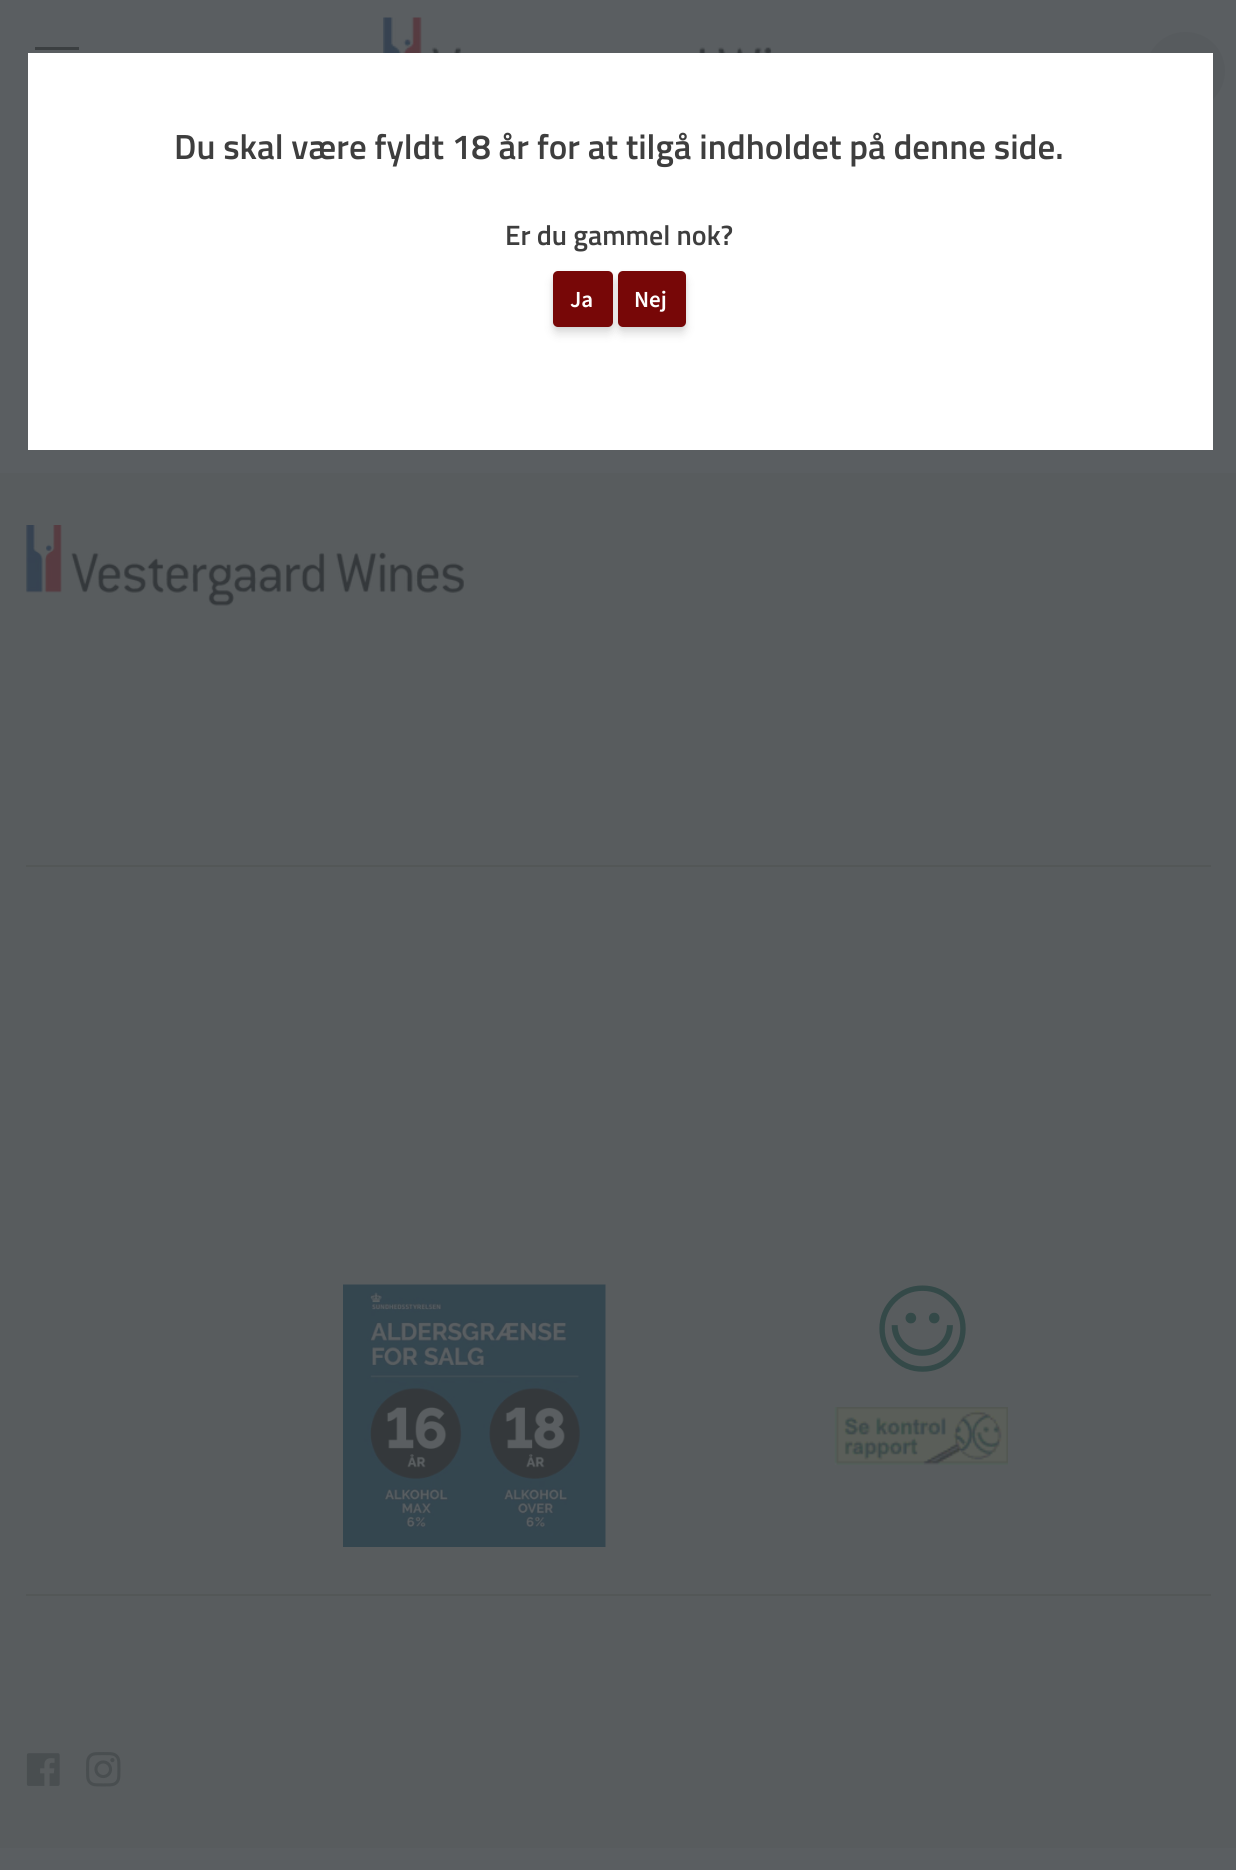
import math
import cairo

surface = cairo.ImageSurface(cairo.FORMAT_RGB24, 1236, 1870)
cr = cairo.Context(surface)
options = cairo.FontOptions()
options.set_hint_metrics(cairo.HINT_METRICS_OFF)
options.set_hint_style(cairo.HINT_STYLE_NONE)
cr.set_font_options(options)
cr.set_miter_limit(4)


def rgb(code):
    cr.set_source_rgb(*(v / 255 for v in bytes.fromhex(code[-6:])))


def rrect(x, y, w, h, r):
    cr.new_sub_path()
    for i, (u, v) in enumerate([(x + w - r, y + h - r), (x + r, y + h - r), (x + r, y + r), (x + w - r, y + r)]):
        cr.arc(u, v, r, i * math.pi / 2, (i + 1) * math.pi / 2)
    cr.close_path()


def soft_shadow(x, y, w, h, r, blur, alpha):
    cr.push_group_with_content(cairo.CONTENT_ALPHA)
    cr.set_operator(cairo.OPERATOR_SOURCE)
    for i in range(15, -16, -2):
        e = blur * i / 6
        if min(w, h) + 2 * e > 0:
            cr.set_source_rgba(0, 0, 0, alpha * math.erfc((i - 1) / 8.5) / 2)
            rrect(x - e, y - e, w + 2 * e, h + 2 * e, max(0, min(r + e + blur * .6, min(w, h) / 2 + e)))
            cr.fill()
    cr.mask(cr.pop_group())


def image(path, x, y, w, h):
    cr.save()
    cr.set_source_surface(cairo.ImageSurface.create_from_png(path), x, y)
    cr.rectangle(x, y, w, h)
    cr.fill()
    cr.restore()


rgb("#5a5e61")
cr.paint()
image("img/1.png", 383, 17, 390, 36)
rgb("#3b3f41")
cr.set_fill_rule(cairo.FILL_RULE_EVEN_ODD)
cr.new_path()
cr.move_to(35, 47)
cr.line_to(79, 47)
cr.line_to(79, 50)
cr.line_to(35, 50)
cr.close_path()
cr.move_to(35, 58)
cr.line_to(79, 58)
cr.line_to(79, 61)
cr.line_to(35, 61)
cr.close_path()
cr.move_to(35, 69)
cr.line_to(79, 69)
cr.line_to(79, 72)
cr.line_to(35, 72)
cr.close_path()
cr.fill()
rgb("#575b5e")
rrect(1146, 32, 79, 78, 39)
cr.fill()
rgb("#ffffff")
cr.rectangle(28, 53, 1185, 397)
cr.fill()
rgb("#000000")
soft_shadow(553, 273, 60, 56, 5, 2.5, 0.08)
soft_shadow(553, 278, 60, 56, 5, 5, 0.12)
rgb("#770707")
rrect(553, 271, 60, 56, 5)
cr.fill()
rgb("#000000")
soft_shadow(618, 273, 68, 56, 5, 2.5, 0.08)
soft_shadow(618, 278, 68, 56, 5, 5, 0.12)
rgb("#770707")
rrect(618, 271, 68, 56, 5)
cr.fill()
rgb("#585c5e")
cr.rectangle(0, 473, 1236, 1375)
cr.fill()
image("img/2.png", 26, 525, 438, 81)
rgb("#535757")
cr.rectangle(26, 865, 1185, 2)
cr.fill()
image("img/3.png", 343, 1284, 263, 263)
image("img/4.png", 879, 1285, 87, 87)
image("img/5.png", 834, 1407, 174, 58)
cr.rectangle(26, 1594, 1185, 2)
cr.fill()
image("img/6.png", 26, 1753, 34, 33)
image("img/7.png", 86, 1752, 35, 35)
cr.select_font_face("Titillium Web SemiBold")
cr.set_font_size(35)
rgb("#3e3e3e")
cr.move_to(174, 159)
cr.show_text("Du skal være fyldt 18 år for at tilgå indholdet på denne side.")
cr.set_font_size(28)
cr.move_to(505, 245)
cr.show_text("Er du gammel nok?")
cr.select_font_face("Source Sans Pro SemiBold")
cr.set_font_size(23)
rgb("#ffffff")
cr.move_to(570, 307)
cr.show_text("Ja")
cr.move_to(634, 307)
cr.show_text("Nej")
surface.write_to_png("page.png")
